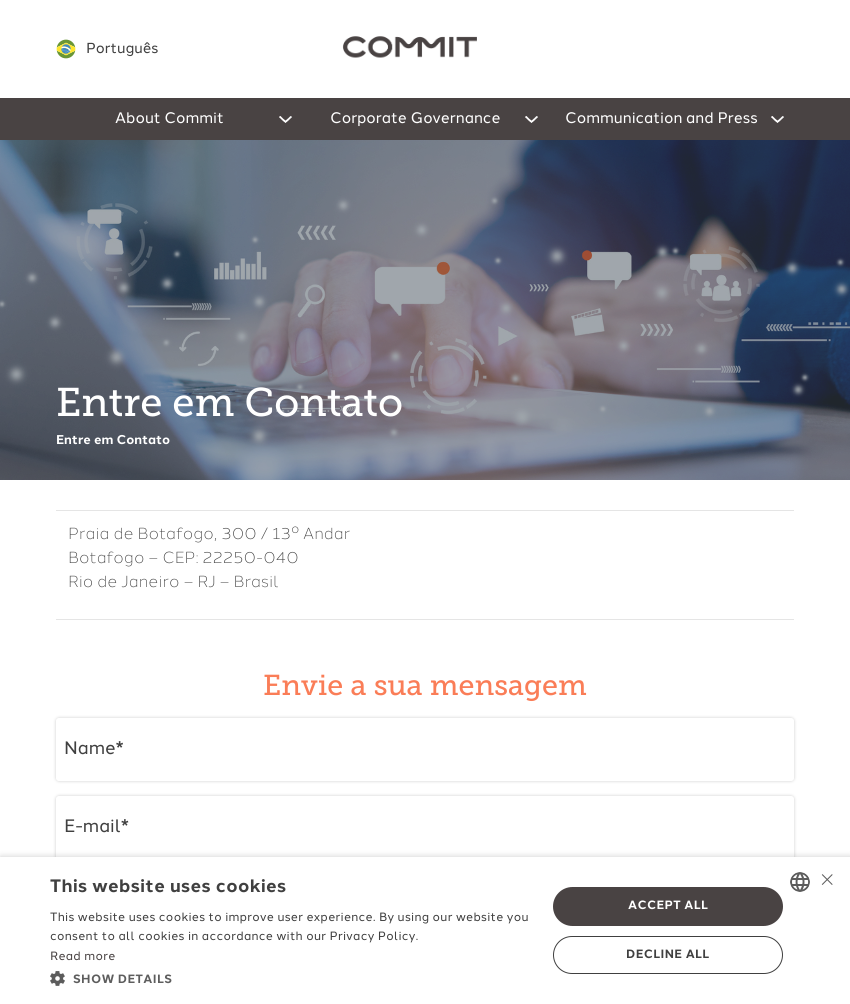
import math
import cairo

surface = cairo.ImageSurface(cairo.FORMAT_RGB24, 850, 1004)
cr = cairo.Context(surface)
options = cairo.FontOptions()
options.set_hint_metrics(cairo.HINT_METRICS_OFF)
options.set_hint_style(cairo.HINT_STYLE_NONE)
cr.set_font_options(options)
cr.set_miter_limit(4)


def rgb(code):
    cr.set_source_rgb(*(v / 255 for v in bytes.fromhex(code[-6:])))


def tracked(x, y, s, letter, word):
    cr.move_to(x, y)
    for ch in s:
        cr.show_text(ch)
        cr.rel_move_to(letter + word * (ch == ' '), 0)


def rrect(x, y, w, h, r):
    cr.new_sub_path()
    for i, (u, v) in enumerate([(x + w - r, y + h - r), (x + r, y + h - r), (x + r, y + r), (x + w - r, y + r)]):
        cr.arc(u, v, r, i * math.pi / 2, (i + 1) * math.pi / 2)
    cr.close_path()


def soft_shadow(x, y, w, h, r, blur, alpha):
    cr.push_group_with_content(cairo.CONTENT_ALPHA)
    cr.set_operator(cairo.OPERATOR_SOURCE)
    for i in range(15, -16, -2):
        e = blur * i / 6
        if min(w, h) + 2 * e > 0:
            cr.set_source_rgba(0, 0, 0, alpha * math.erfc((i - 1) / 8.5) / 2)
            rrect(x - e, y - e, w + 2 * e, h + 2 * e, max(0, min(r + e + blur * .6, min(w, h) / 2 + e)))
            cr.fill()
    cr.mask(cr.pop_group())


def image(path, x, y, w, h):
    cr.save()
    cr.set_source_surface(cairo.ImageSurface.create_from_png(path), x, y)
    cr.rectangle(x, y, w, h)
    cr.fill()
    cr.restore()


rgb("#ffffff")
cr.paint()
image("img/1.png", 56, 39, 20, 20)
image("img/2.png", 342, 36, 135, 22)
rgb("#494343")
cr.rectangle(0, 98, 850, 42)
cr.fill()
image("img/3.png", 279, 116, 13, 7)
image("img/3.png", 525, 116, 13, 7)
image("img/3.png", 771, 116, 13, 7)
image("img/4.png", 0, 140, 850, 340)
rgb("#e5e5e5")
cr.rectangle(56, 510, 738, 1)
cr.fill()
cr.rectangle(56, 619, 738, 1)
cr.fill()
cr.save()
cr.set_fill_rule(cairo.FILL_RULE_EVEN_ODD)
cr.new_path()
cr.move_to(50, 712)
cr.line_to(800, 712)
cr.line_to(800, 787)
cr.line_to(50, 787)
cr.close_path()
cr.move_to(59, 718)
cr.line_to(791, 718)
cr.curve_to(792.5, 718, 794, 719.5, 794, 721)
cr.line_to(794, 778)
cr.curve_to(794, 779.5, 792.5, 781, 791, 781)
cr.line_to(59, 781)
cr.curve_to(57.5, 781, 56, 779.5, 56, 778)
cr.line_to(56, 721)
cr.curve_to(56, 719.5, 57.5, 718, 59, 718)
cr.close_path()
cr.clip()
rgb("#cccccc")
soft_shadow(56, 718, 738, 63, 3, 1.5, 1)
cr.restore()
cr.save()
cr.set_fill_rule(cairo.FILL_RULE_EVEN_ODD)
cr.new_path()
cr.move_to(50, 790)
cr.line_to(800, 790)
cr.line_to(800, 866)
cr.line_to(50, 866)
cr.close_path()
cr.move_to(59, 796)
cr.line_to(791, 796)
cr.curve_to(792.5, 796, 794, 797.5, 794, 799)
cr.line_to(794, 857)
cr.curve_to(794, 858.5, 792.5, 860, 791, 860)
cr.line_to(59, 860)
cr.curve_to(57.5, 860, 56, 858.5, 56, 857)
cr.line_to(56, 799)
cr.curve_to(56, 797.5, 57.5, 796, 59, 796)
cr.close_path()
cr.clip()
rgb("#cccccc")
soft_shadow(56, 796, 738, 64, 3, 1.5, 1)
cr.restore()
rgb("#000000")
soft_shadow(1, 859, 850, 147, 0, 4, 0.35)
rgb("#ffffff")
cr.rectangle(0, 857, 850, 147)
cr.fill()
image("img/5.png", 50, 971, 15, 15)
rgb("#494343")
rrect(553, 887, 230, 39, 19.5)
cr.fill()
rrect(553.5, 936.5, 229, 37, 18.5)
rgb("#404040")
cr.set_line_width(1)
cr.stroke()
image("img/6.png", 790, 872, 20, 20)
cr.select_font_face("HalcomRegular")
cr.set_font_size(14.5)
cr.move_to(86, 53)
cr.show_text("Português")
cr.set_font_size(15.25)
rgb("#ffffff")
for x, y, s in [
    (115, 123, "About Commit"),
    (330, 123, "Corporate Governance"),
    (565, 123, "Communication and Press"),
]:
    cr.move_to(x, y)
    cr.show_text(s)
cr.select_font_face("Museo Slab")
cr.set_font_size(40)
cr.move_to(56, 416)
cr.show_text("Entre em Contato")
cr.select_font_face("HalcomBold", cairo.FONT_SLANT_NORMAL, cairo.FONT_WEIGHT_BOLD)
cr.set_font_size(12.75)
cr.move_to(56, 444)
cr.show_text("Entre em Contato")
cr.select_font_face("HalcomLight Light")
cr.set_font_size(16)
rgb("#404040")
for x, y, s in [
    (68, 539, "Praia de Botafogo, 300 / 13º Andar"),
    (68, 563, "Botafogo – CEP: 22250-040"),
    (68, 587, "Rio de Janeiro – RJ – Brasil"),
]:
    cr.move_to(x, y)
    cr.show_text(s)
cr.select_font_face("Museo Slab")
cr.set_font_size(28.75)
rgb("#fa7d57")
cr.move_to(263, 695)
cr.show_text("Envie a sua mensagem")
cr.select_font_face("HalcomRegular")
cr.set_font_size(18)
rgb("#404040")
cr.move_to(64, 754)
cr.show_text("Name*")
cr.move_to(64, 832)
cr.show_text("E-mail*")
cr.select_font_face("HalcomBold", cairo.FONT_SLANT_NORMAL, cairo.FONT_WEIGHT_BOLD)
tracked(50, 892, "This website uses cookies", 0.4, 0)
cr.select_font_face("HalcomRegular")
cr.set_font_size(12)
tracked(50, 921, "This website uses cookies to improve user experience. By using our website you", 0.3, 0)
tracked(50, 940, "consent to all cookies in accordance with our Privacy Policy.", 0.3, 0)
rgb("#494343")
tracked(50, 960, "Read more", 0.3, 0)
cr.select_font_face("HalcomBold", cairo.FONT_SLANT_NORMAL, cairo.FONT_WEIGHT_BOLD)
rgb("#5d5d5d")
tracked(73, 983, "SHOW DETAILS", 0.4, 0)
rgb("#ffffff")
tracked(628, 909, "ACCEPT ALL", 0.4, 0)
rgb("#404040")
tracked(626, 958, "DECLINE ALL", 0.4, 0)
cr.select_font_face("HalcomLight Light")
cr.set_font_size(29)
rgb("#5d5d5d")
cr.move_to(820, 888)
cr.show_text("×")
surface.write_to_png("page.png")
